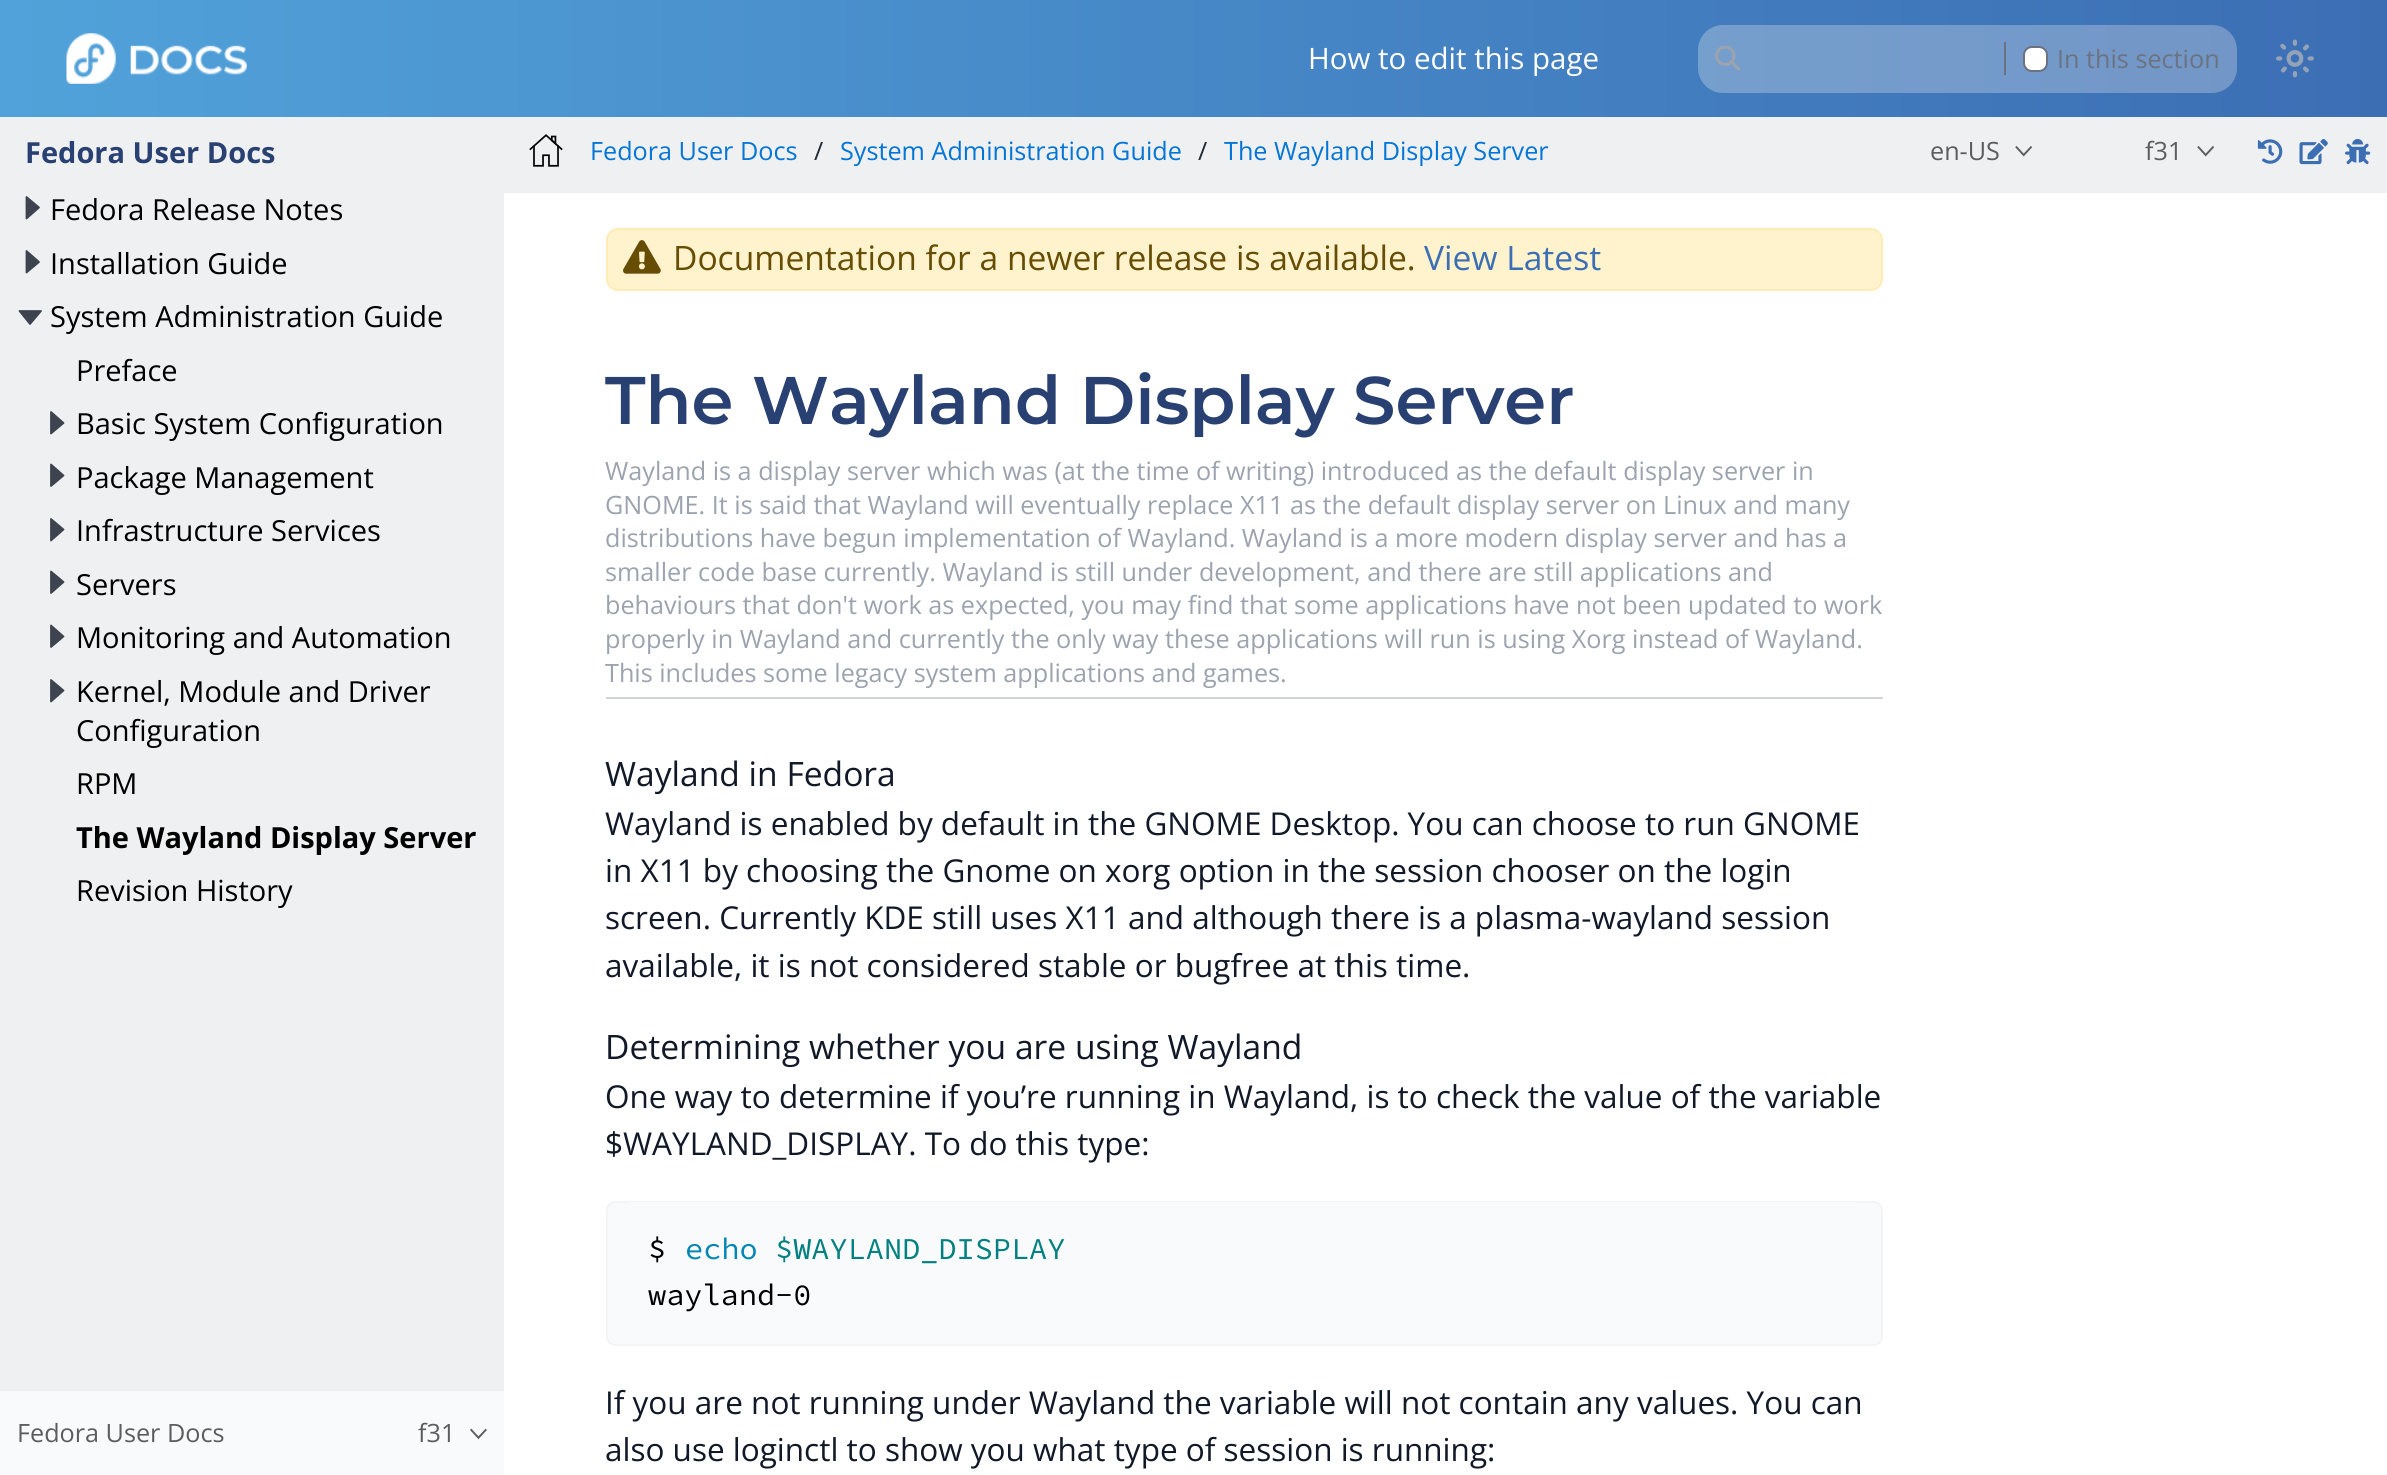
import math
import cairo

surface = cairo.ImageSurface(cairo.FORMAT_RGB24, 2387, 1475)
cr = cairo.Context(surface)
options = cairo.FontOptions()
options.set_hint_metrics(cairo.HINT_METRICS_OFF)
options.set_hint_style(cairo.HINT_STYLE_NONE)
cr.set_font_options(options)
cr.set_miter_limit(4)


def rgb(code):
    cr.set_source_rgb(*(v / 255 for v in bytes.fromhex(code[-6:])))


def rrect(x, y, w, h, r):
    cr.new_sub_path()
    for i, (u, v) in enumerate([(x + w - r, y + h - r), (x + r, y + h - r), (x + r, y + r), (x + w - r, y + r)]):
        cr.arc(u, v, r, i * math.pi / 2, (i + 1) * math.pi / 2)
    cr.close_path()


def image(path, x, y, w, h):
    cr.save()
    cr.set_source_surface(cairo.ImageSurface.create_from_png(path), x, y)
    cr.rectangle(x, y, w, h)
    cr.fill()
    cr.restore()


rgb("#ffffff")
cr.paint()
gradient = cairo.LinearGradient(2387, 59, 0, 59)
gradient.add_color_stop_rgba(0, 0.235, 0.431, 0.706, 1)
gradient.add_color_stop_rgba(1, 0.318, 0.635, 0.855, 1)
cr.set_source(gradient)
cr.rectangle(0, 0, 2387, 117)
cr.fill()
image("img/1.png", 66, 33, 181, 51)
cr.set_source_rgba(0.937, 0.937, 0.937, 0.3)
rrect(1698, 25, 539, 68, 25)
cr.fill()
image("img/2.png", 1715, 46, 25, 25)
rgb("#6b7280")
cr.rectangle(2004, 42, 2, 33)
cr.fill()
rgb("#ffffff")
rrect(2024, 47, 23, 24, 8)
cr.fill_preserve()
rgb("#6b7280")
cr.stroke()
image("img/3.png", 2276, 39, 38, 39)
rgb("#eff0f1")
cr.rectangle(0, 117, 504, 1274)
cr.fill()
rgb("#3d434f")
cr.new_path()
cr.move_to(26.5, 197)
cr.line_to(39, 207.5)
cr.line_to(26.5, 218.5)
cr.close_path()
cr.fill_preserve()
cr.set_line_width(1.8)
cr.set_line_cap(cairo.LINE_CAP_ROUND)
cr.set_line_join(cairo.LINE_JOIN_ROUND)
cr.stroke()
cr.new_path()
cr.move_to(26.5, 251)
cr.line_to(39, 262)
cr.line_to(26.5, 272.5)
cr.close_path()
cr.fill_preserve()
cr.stroke()
cr.new_path()
cr.move_to(41, 311)
cr.line_to(30, 324)
cr.line_to(19.5, 311)
cr.close_path()
cr.fill_preserve()
cr.stroke()
cr.new_path()
cr.move_to(51, 412)
cr.line_to(63.5, 423)
cr.line_to(51, 433.5)
cr.close_path()
cr.fill_preserve()
cr.stroke()
cr.new_path()
cr.move_to(51, 464.5)
cr.line_to(63.5, 475.5)
cr.line_to(51, 486)
cr.close_path()
cr.fill_preserve()
cr.stroke()
cr.new_path()
cr.move_to(51, 519)
cr.line_to(63.5, 529.5)
cr.line_to(51, 540.5)
cr.close_path()
cr.fill_preserve()
cr.stroke()
cr.new_path()
cr.move_to(51, 571.5)
cr.line_to(63.5, 582)
cr.line_to(51, 593)
cr.close_path()
cr.fill_preserve()
cr.stroke()
cr.new_path()
cr.move_to(51, 625.5)
cr.line_to(63.5, 636.5)
cr.line_to(51, 647)
cr.close_path()
cr.fill_preserve()
cr.stroke()
cr.new_path()
cr.move_to(51, 680)
cr.line_to(63.5, 690.5)
cr.line_to(51, 701.5)
cr.close_path()
cr.fill_preserve()
cr.stroke()
rgb("#f9fafb")
cr.rectangle(0, 1391, 504, 84)
cr.fill()
image("img/4.png", 470, 1428, 17, 12)
rgb("#eff0f1")
cr.rectangle(504, 117, 1883, 76)
cr.fill()
image("img/5.png", 529, 134, 34, 33)
image("img/6.png", 2015, 146, 18, 11)
image("img/6.png", 2197, 146, 18, 11)
image("img/7.png", 2257, 139, 26, 25)
image("img/8.png", 2299, 139, 29, 26)
image("img/9.png", 2345, 139, 26, 26)
rgb("#fff3cd")
rrect(607, 229, 1275, 61, 11)
cr.fill_preserve()
rgb("#ffecb5")
cr.set_line_width(2)
cr.set_line_cap(cairo.LINE_CAP_BUTT)
cr.set_line_join(cairo.LINE_JOIN_MITER)
cr.stroke()
image("img/10.png", 623, 240, 38, 34)
rgb("#d1d5db")
cr.rectangle(606, 697, 1277, 2)
cr.fill()
rgb("#f9fafb")
rrect(607, 1202, 1275, 143, 8)
cr.fill_preserve()
rgb("#f3f4f6")
cr.stroke()
rgb("#f9fafb")
rrect(623, 1202, 1241, 142, 9)
cr.fill()
cr.select_font_face("Open Sans")
cr.set_font_size(29.5)
rgb("#ffffff")
cr.move_to(1308, 69)
cr.show_text("How to edit this page")
cr.set_font_size(25.2)
rgb("#6b7280")
cr.move_to(2057, 68)
cr.show_text("In this section")
cr.select_font_face("Open Sans", cairo.FONT_SLANT_NORMAL, cairo.FONT_WEIGHT_BOLD)
cr.set_font_size(29)
rgb("#294172")
cr.move_to(25, 163)
cr.show_text("Fedora User Docs")
cr.select_font_face("Open Sans")
rgb("#000000")
for x, y, s in [
    (50, 220, "Fedora Release Notes"),
    (50, 274, "Installation Guide"),
    (50, 327, "System Administration Guide"),
    (76, 381, "Preface"),
    (76, 434, "Basic System Configuration"),
    (76, 488, "Package Management"),
    (76, 541, "Infrastructure Services"),
    (76, 595, "Servers"),
    (76, 648, "Monitoring and Automation"),
    (76, 702, "Kernel, Module and Driver"),
    (76, 741, "Configuration"),
    (76, 794, "RPM"),
]:
    cr.move_to(x, y)
    cr.show_text(s)
cr.select_font_face("Open Sans", cairo.FONT_SLANT_NORMAL, cairo.FONT_WEIGHT_BOLD)
cr.move_to(76, 848)
cr.show_text("The Wayland Display Server")
cr.select_font_face("Open Sans")
cr.move_to(76, 901)
cr.show_text("Revision History")
cr.set_font_size(25.2)
rgb("#5d5d5d")
cr.move_to(17, 1442)
cr.show_text("Fedora User Docs")
cr.move_to(418, 1442)
cr.show_text("f31")
rgb("#0275d8")
cr.move_to(590, 160)
cr.show_text("Fedora User Docs")
rgb("#1f2937")
cr.move_to(814, 160)
cr.show_text("/")
rgb("#0275d8")
cr.move_to(840, 160)
cr.show_text("System Administration Guide")
rgb("#1f2937")
cr.move_to(1198, 160)
cr.show_text("/")
rgb("#0275d8")
cr.move_to(1224, 160)
cr.show_text("The Wayland Display Server")
rgb("#5d5d5d")
cr.move_to(1930, 160)
cr.show_text("en-US")
cr.move_to(2145, 160)
cr.show_text("f31")
cr.set_font_size(33.6)
rgb("#664d03")
cr.move_to(673, 270)
cr.show_text("Documentation for a newer release is available.")
rgb("#3c6eb4")
cr.move_to(1424, 270)
cr.show_text("View Latest")
cr.select_font_face("Montserrat SemiBold")
cr.set_font_size(67.25)
rgb("#294172")
cr.move_to(605, 424)
cr.show_text("The Wayland Display Server")
cr.select_font_face("Open Sans")
cr.set_font_size(25.2)
rgb("#9ca3af")
for x, y, s in [
    (605, 480, "Wayland is a display server which was (at the time of writing) introduced as the default display server in"),
    (605, 514, "GNOME. It is said that Wayland will eventually replace X11 as the default display server on Linux and many"),
    (605, 547, "distributions have begun implementation of Wayland. Wayland is a more modern display server and has a"),
    (605, 581, "smaller code base currently. Wayland is still under development, and there are still applications and"),
    (605, 614, "behaviours that don't work as expected, you may find that some applications have not been updated to work"),
    (605, 648, "properly in Wayland and currently the only way these applications will run is using Xorg instead of Wayland."),
    (605, 682, "This includes some legacy system applications and games."),
]:
    cr.move_to(x, y)
    cr.show_text(s)
cr.set_font_size(33.6)
rgb("#111827")
cr.move_to(605, 786)
cr.show_text("Wayland in Fedora")
cr.set_font_size(31.5)
for x, y, s in [
    (605, 835, "Wayland is enabled by default in the GNOME Desktop. You can choose to run GNOME"),
    (605, 882, "in X11 by choosing the Gnome on xorg option in the session chooser on the login"),
    (605, 929, "screen. Currently KDE still uses X11 and although there is a plasma-wayland session"),
    (605, 977, "available, it is not considered stable or bugfree at this time."),
]:
    cr.move_to(x, y)
    cr.show_text(s)
cr.set_font_size(33.6)
cr.move_to(605, 1059)
cr.show_text("Determining whether you are using Wayland")
cr.set_font_size(31.5)
cr.move_to(605, 1108)
cr.show_text("One way to determine if you’re running in Wayland, is to check the value of the variable")
cr.move_to(605, 1155)
cr.show_text("$WAYLAND_DISPLAY. To do this type:")
cr.select_font_face("Source Code Pro")
cr.set_font_size(30.25)
rgb("#000000")
cr.move_to(648, 1259)
cr.show_text("$")
rgb("#0086b3")
cr.move_to(685, 1259)
cr.show_text("echo")
rgb("#008080")
cr.move_to(775, 1259)
cr.show_text("$WAYLAND_DISPLAY")
rgb("#000000")
cr.move_to(648, 1305)
cr.show_text("wayland-0")
cr.select_font_face("Open Sans")
cr.set_font_size(31.5)
rgb("#111827")
cr.move_to(605, 1414)
cr.show_text("If you are not running under Wayland the variable will not contain any values. You can")
cr.move_to(605, 1461)
cr.show_text("also use loginctl to show you what type of session is running:")
surface.write_to_png("page.png")
